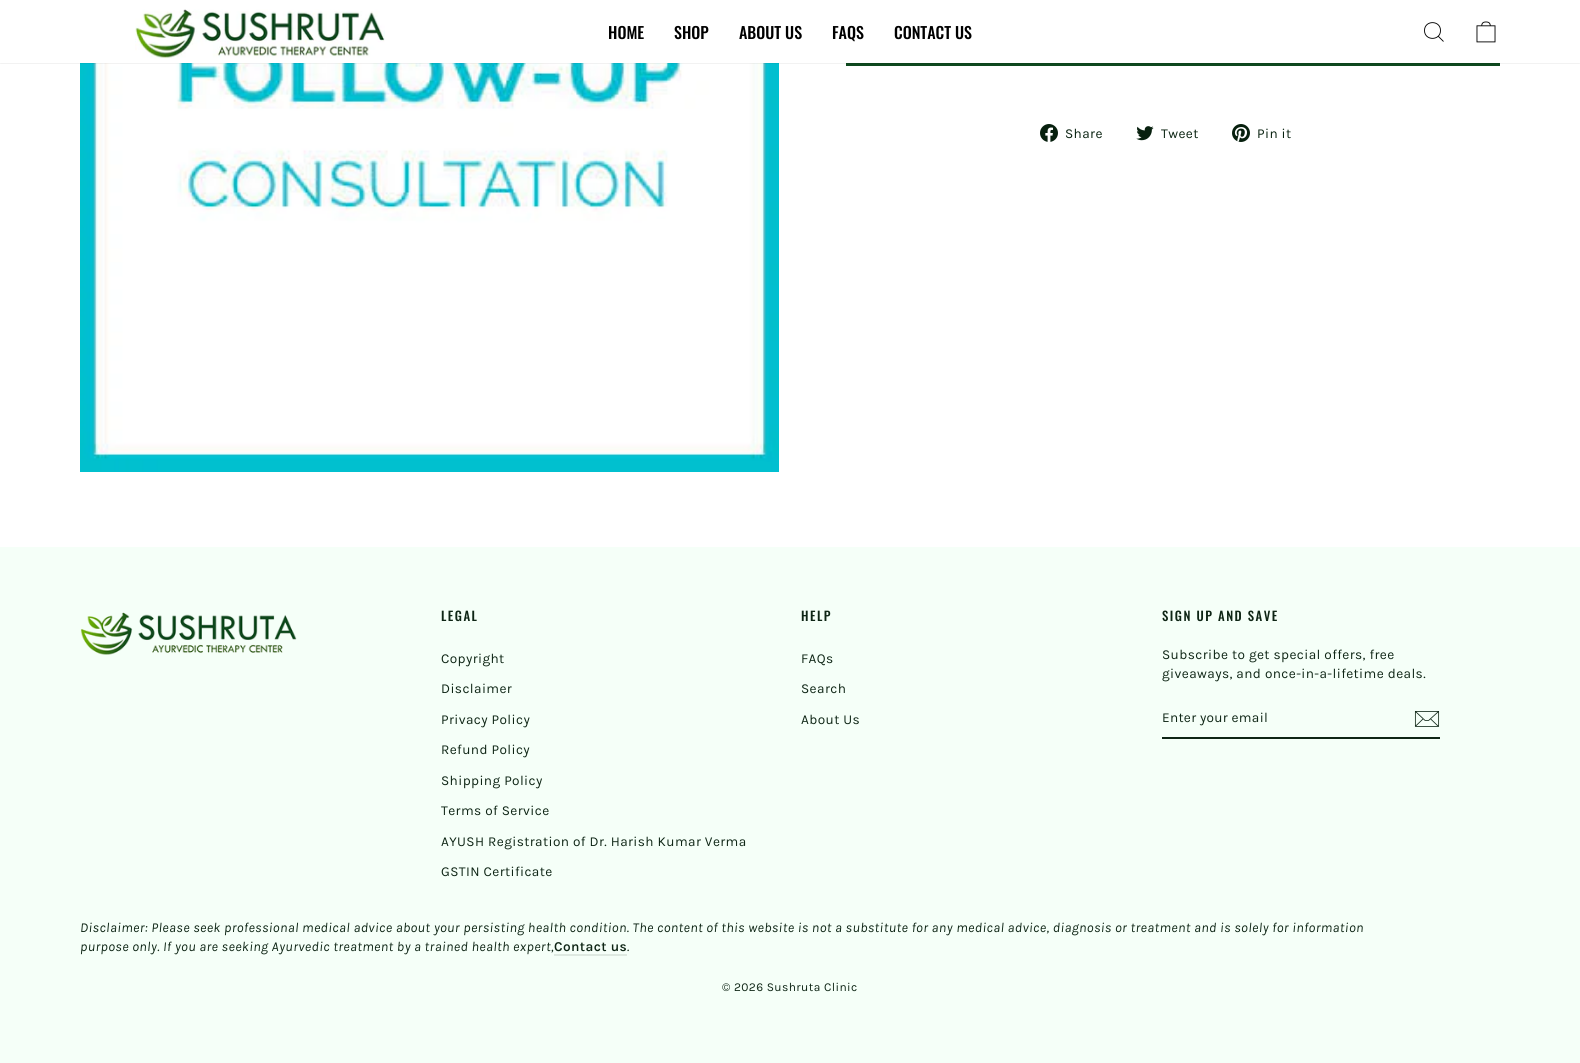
import math
import cairo

surface = cairo.ImageSurface(cairo.FORMAT_RGB24, 1580, 1063)
cr = cairo.Context(surface)
options = cairo.FontOptions()
options.set_hint_metrics(cairo.HINT_METRICS_OFF)
options.set_hint_style(cairo.HINT_STYLE_NONE)
cr.set_font_options(options)
cr.set_miter_limit(4)


def rgb(code):
    cr.set_source_rgb(*(v / 255 for v in bytes.fromhex(code[-6:])))


def tracked(x, y, s, letter, word):
    cr.move_to(x, y)
    for ch in s:
        cr.show_text(ch)
        cr.rel_move_to(letter + word * (ch == ' '), 0)


def rrect(x, y, w, h, r):
    cr.new_sub_path()
    for i, (u, v) in enumerate([(x + w - r, y + h - r), (x + r, y + h - r), (x + r, y + r), (x + w - r, y + r)]):
        cr.arc(u, v, r, i * math.pi / 2, (i + 1) * math.pi / 2)
    cr.close_path()


def soft_shadow(x, y, w, h, r, blur, alpha):
    cr.push_group_with_content(cairo.CONTENT_ALPHA)
    cr.set_operator(cairo.OPERATOR_SOURCE)
    for i in range(15, -16, -2):
        e = blur * i / 6
        if min(w, h) + 2 * e > 0:
            cr.set_source_rgba(0, 0, 0, alpha * math.erfc((i - 1) / 8.5) / 2)
            rrect(x - e, y - e, w + 2 * e, h + 2 * e, max(0, min(r + e + blur * .6, min(w, h) / 2 + e)))
            cr.fill()
    cr.mask(cr.pop_group())


def image(path, x, y, w, h):
    cr.save()
    cr.set_source_surface(cairo.ImageSurface.create_from_png(path), x, y)
    cr.rectangle(x, y, w, h)
    cr.fill()
    cr.restore()


rgb("#ffffff")
cr.paint()
image("img/3.png", 80, 63, 699, 409)
rgb("#0e491f")
cr.rectangle(846, 63, 654, 3)
cr.fill()
rgb("#000000")
soft_shadow(0, 0, 1580, 63, 0, 0.5, 0.2)
rgb("#ffffff")
cr.rectangle(0, 0, 1580, 63)
cr.fill()
image("img/1.png", 135, 9, 250, 50)
cr.new_path()
cr.move_to(1440.5, 30.5)
cr.curve_to(1440.5, 41, 1424.5, 41, 1424.5, 30.5)
cr.curve_to(1424.5, 20, 1440.5, 20, 1440.5, 30.5)
cr.close_path()
cr.move_to(1443.5, 41.5)
cr.line_to(1438.5, 36.5)
rgb("#000000")
cr.set_line_width(0.9)
cr.stroke()
image("img/2.png", 1476, 21, 20, 22)
image("img/4.png", 1040, 124, 18, 18)
image("img/5.png", 1136, 126, 18, 15)
image("img/6.png", 1232, 124, 18, 18)
rgb("#f5fff8")
cr.rectangle(0, 547, 1580, 516)
cr.fill()
image("img/7.png", 80, 612, 217, 43)
rgb("#0e2515")
cr.rectangle(1162, 737, 278, 2)
cr.fill()
image("img/8.png", 1414, 711, 26, 16)
rgb("#dee9e1")
cr.rectangle(554, 954, 73, 2)
cr.fill()
cr.select_font_face("Oswald Medium")
cr.set_font_size(16)
rgb("#000000")
for x, y, s in [
    (608, 39, "HOME"),
    (674, 39, "SHOP"),
    (739, 39, "ABOUT US"),
    (832, 39, "FAQS"),
    (894, 39, "CONTACT US"),
]:
    cr.move_to(x, y)
    cr.show_text(s)
cr.select_font_face("Karla")
cr.set_font_size(13.6)
rgb("#07200e")
for x, y, s in [
    (1065, 138, "Share"),
    (1161, 138, "Tweet"),
    (1257, 138, "Pin it"),
]:
    tracked(x, y, s, 0.4, 0)
cr.select_font_face("Oswald Medium")
cr.set_font_size(12.75)
rgb("#0e2515")
tracked(441, 621, "LEGAL", 1.5, 0)
cr.select_font_face("Karla")
cr.set_font_size(13.6)
for x, y, s in [
    (441, 663, "Copyright"),
    (441, 693, "Disclaimer"),
    (441, 724, "Privacy Policy"),
    (441, 754, "Refund Policy"),
    (441, 785, "Shipping Policy"),
    (441, 815, "Terms of Service"),
    (441, 846, "AYUSH Registration of Dr. Harish Kumar Verma"),
    (441, 876, "GSTIN Certificate"),
]:
    tracked(x, y, s, 0.4, 0)
cr.select_font_face("Oswald Medium")
cr.set_font_size(12.75)
tracked(801, 621, "HELP", 1.5, 0)
cr.select_font_face("Karla")
cr.set_font_size(13.6)
for x, y, s in [
    (801, 663, "FAQs"),
    (801, 693, "Search"),
    (801, 724, "About Us"),
]:
    tracked(x, y, s, 0.4, 0)
cr.select_font_face("Oswald Medium")
cr.set_font_size(12.75)
tracked(1162, 621, "SIGN UP AND SAVE", 1.5, 0)
cr.select_font_face("Karla")
cr.set_font_size(13.6)
tracked(1162, 659, "Subscribe to get special offers, free", 0.4, 0)
tracked(1162, 678, "giveaways, and once-in-a-lifetime deals.", 0.4, 0)
tracked(1162, 722, "Enter your email", 0.3, 0)
cr.select_font_face("Karla", cairo.FONT_SLANT_ITALIC)
tracked(80, 932, "Disclaimer: Please seek professional medical advice about your persisting health condition. The content of this website is not a substitute for any medical advice, diagnosis or treatment and is solely for information", 0.4, 0)
tracked(80, 951, "purpose only. If you are seeking Ayurvedic treatment by a trained health expert,", 0.4, 0)
cr.select_font_face("Karla SemiBold")
tracked(554, 951, "Contact us", 0.4, 0)
cr.select_font_face("Karla", cairo.FONT_SLANT_ITALIC)
tracked(627, 951, ".", 0.4, 0)
cr.select_font_face("Karla")
cr.set_font_size(12)
tracked(722, 991, "© 2026 Sushruta Clinic", 0.4, 0)
surface.write_to_png("page.png")
